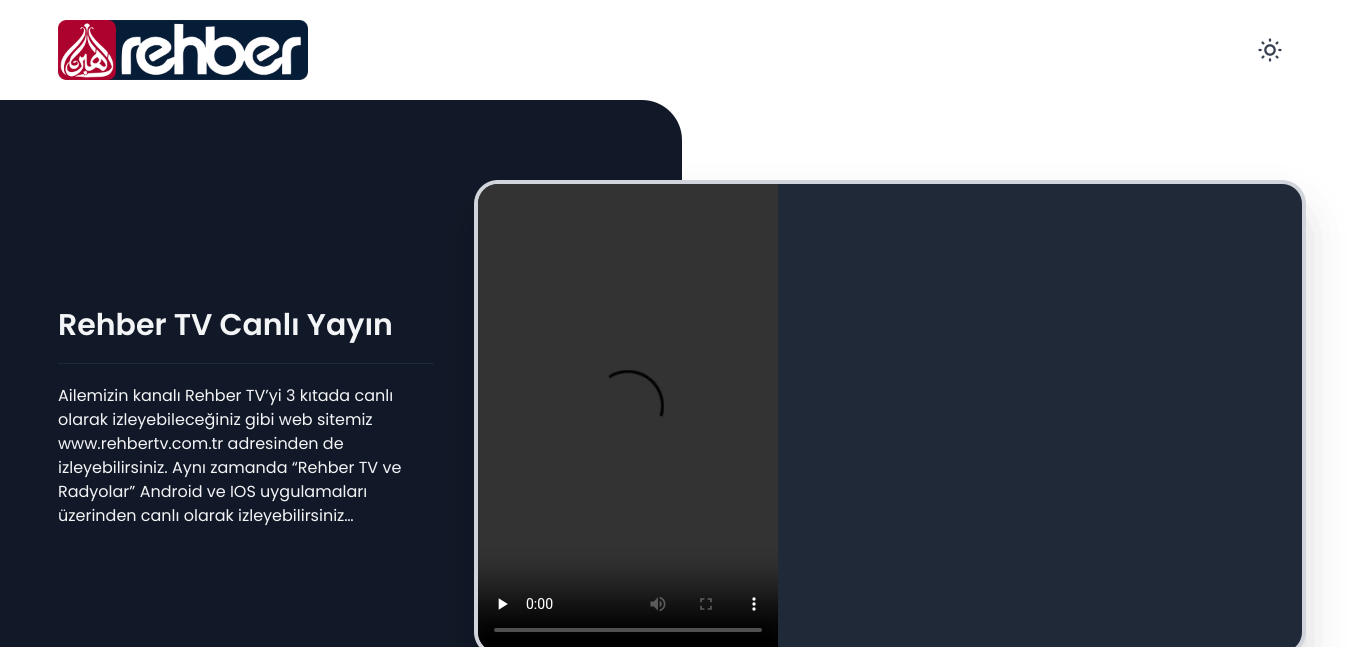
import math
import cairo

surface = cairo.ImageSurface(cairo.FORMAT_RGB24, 1364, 647)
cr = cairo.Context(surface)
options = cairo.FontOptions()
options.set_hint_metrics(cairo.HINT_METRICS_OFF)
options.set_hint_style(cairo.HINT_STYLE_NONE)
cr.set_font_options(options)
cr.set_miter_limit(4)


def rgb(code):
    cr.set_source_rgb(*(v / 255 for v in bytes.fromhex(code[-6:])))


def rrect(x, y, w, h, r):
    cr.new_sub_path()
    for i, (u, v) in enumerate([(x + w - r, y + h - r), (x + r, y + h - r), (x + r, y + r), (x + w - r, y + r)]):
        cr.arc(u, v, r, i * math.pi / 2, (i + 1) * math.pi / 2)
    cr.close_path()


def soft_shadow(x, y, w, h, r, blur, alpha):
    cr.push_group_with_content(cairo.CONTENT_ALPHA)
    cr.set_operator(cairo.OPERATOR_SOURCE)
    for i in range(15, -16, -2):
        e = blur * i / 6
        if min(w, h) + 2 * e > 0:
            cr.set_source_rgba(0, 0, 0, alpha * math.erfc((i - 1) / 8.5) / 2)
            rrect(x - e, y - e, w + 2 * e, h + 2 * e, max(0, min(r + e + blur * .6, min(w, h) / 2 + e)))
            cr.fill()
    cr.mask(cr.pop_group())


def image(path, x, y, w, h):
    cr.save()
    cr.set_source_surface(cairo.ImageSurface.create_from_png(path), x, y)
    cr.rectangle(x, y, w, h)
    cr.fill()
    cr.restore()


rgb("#ffffff")
cr.paint()
image("img/1.png", 58, 20, 250, 60)
image("img/2.png", 1258, 38, 24, 24)
rgb("#111827")
cr.new_path()
cr.move_to(0, 100)
cr.line_to(642, 100)
cr.curve_to(664, 100, 682, 118, 682, 140)
cr.line_to(682, 647)
cr.curve_to(682, 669, 664, 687, 642, 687)
cr.line_to(0, 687)
cr.close_path()
cr.fill()
rgb("#1f2937")
cr.rectangle(58, 363, 376, 1)
cr.fill()
rgb("#000000")
soft_shadow(486, 217, 808, 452, 12, 25, 0.25)
rgb("#1f2937")
rrect(476, 182, 828, 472, 22)
cr.fill_preserve()
rgb("#d1d5db")
cr.set_line_width(4)
cr.stroke()
image("img/3.png", 478, 184, 300, 463)
cr.select_font_face("Poppins SemiBold")
cr.set_font_size(30)
rgb("#f3f4f6")
cr.move_to(58, 335)
cr.show_text("Rehber TV Canlı Yayın")
cr.select_font_face("Poppins")
cr.set_font_size(16)
for x, y, s in [
    (58, 401, "Ailemizin kanalı Rehber TV’yi 3 kıtada canlı"),
    (58, 425, "olarak izleyebileceğiniz gibi web sitemiz"),
    (58, 449, "www.rehbertv.com.tr adresinden de"),
    (58, 473, "izleyebilirsiniz. Aynı zamanda “Rehber TV ve"),
    (58, 497, "Radyolar” Android ve IOS uygulamaları"),
    (58, 521, "üzerinden canlı olarak izleyebilirsiniz…"),
]:
    cr.move_to(x, y)
    cr.show_text(s)
surface.write_to_png("page.png")
